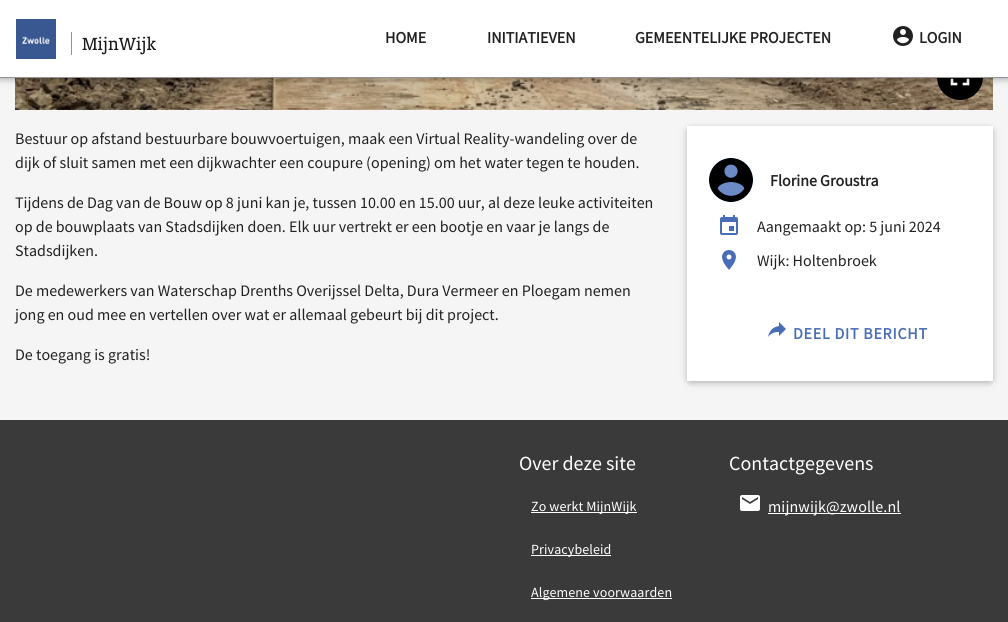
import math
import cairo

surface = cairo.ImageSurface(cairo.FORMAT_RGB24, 1008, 622)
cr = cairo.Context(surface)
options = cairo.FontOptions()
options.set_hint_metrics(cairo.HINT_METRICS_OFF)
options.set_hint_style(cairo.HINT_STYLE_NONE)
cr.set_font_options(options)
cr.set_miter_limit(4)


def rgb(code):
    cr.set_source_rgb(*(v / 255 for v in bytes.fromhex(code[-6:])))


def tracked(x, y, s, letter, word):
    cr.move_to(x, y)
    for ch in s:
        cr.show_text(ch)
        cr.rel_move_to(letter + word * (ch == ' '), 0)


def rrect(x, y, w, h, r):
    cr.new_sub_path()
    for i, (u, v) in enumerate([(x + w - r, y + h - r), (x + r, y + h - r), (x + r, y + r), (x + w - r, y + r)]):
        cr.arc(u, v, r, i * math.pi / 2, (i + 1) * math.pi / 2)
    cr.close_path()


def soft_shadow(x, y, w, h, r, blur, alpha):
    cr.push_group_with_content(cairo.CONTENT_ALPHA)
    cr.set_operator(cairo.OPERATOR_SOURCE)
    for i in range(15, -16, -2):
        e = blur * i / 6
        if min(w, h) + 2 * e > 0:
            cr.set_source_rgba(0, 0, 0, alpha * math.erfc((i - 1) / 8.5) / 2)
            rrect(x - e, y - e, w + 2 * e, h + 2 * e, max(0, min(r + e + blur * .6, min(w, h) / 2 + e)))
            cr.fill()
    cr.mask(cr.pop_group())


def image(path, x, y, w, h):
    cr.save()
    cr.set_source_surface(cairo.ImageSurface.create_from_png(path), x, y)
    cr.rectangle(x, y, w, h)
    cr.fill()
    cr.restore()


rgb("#f5f5f5")
cr.paint()
image("img/4.png", 15, 78, 978, 32)
rgb("#000000")
cr.arc(960, 77, 23, 0, 2 * math.pi)
cr.fill()
image("img/3.png", 950, 78, 20, 8)
rgb("#000000")
soft_shadow(0, 2, 1008, 78, 0, 5, 0.12)
soft_shadow(0, 2, 1008, 78, 0, 2.5, 0.16)
rgb("#ffffff")
cr.rectangle(0, 0, 1008, 77)
cr.fill()
rgb("#949494")
cr.rectangle(0, 77, 1008, 1)
cr.fill()
image("img/1.png", 16, 19, 40, 40)
cr.rectangle(71, 32, 1, 23)
cr.fill()
image("img/2.png", 893, 26, 20, 20)
rgb("#000000")
soft_shadow(687, 128, 306, 255, 4, 5, 0.12)
soft_shadow(687, 128, 306, 255, 4, 2.5, 0.16)
rgb("#ffffff")
cr.rectangle(687, 126, 306, 255)
cr.fill()
rgb("#6b8ac6")
cr.arc(731, 180, 23, 0, 2 * math.pi)
cr.fill_preserve()
rgb("#ffffff")
cr.stroke()
image("img/5.png", 709, 158, 44, 44)
image("img/6.png", 720, 215, 18, 20)
image("img/7.png", 722, 250, 14, 20)
image("img/8.png", 768, 322, 18, 15)
for x, y, w, h, color in [
    (0, 420, 1008, 202, "#3a3a3a"),
    (531, 512, 106, 1, "#ffffff"),
    (531, 555, 80, 1, "#ffffff"),
    (531, 598, 141, 1, "#ffffff"),
]:
    rgb(color)
    cr.rectangle(x, y, w, h)
    cr.fill()
image("img/9.png", 740, 495, 20, 16)
cr.rectangle(768, 513, 133, 1)
cr.fill()
cr.select_font_face("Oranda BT")
cr.set_font_size(20)
rgb("#1a1a1a")
cr.move_to(82, 50)
cr.show_text("MijnWijk")
cr.select_font_face("Source Sans Pro", cairo.FONT_SLANT_NORMAL, cairo.FONT_WEIGHT_BOLD)
cr.set_font_size(16)
rgb("#212121")
for x, y, s in [
    (385, 43, "HOME"),
    (487, 43, "INITIATIEVEN"),
    (635, 43, "GEMEENTELIJKE PROJECTEN"),
    (919, 43, "LOGIN"),
]:
    cr.move_to(x, y)
    cr.show_text(s)
cr.select_font_face("Source Sans Pro")
for x, y, s in [
    (15, 144, "Bestuur op afstand bestuurbare bouwvoertuigen, maak een Virtual Reality-wandeling over de"),
    (15, 168, "dijk of sluit samen met een dijkwachter een coupure (opening) om het water tegen te houden."),
    (15, 208, "Tijdens de Dag van de Bouw op 8 juni kan je, tussen 10.00 en 15.00 uur, al deze leuke activiteiten"),
    (15, 232, "op de bouwplaats van Stadsdijken doen. Elk uur vertrekt er een bootje en vaar je langs de"),
    (15, 256, "Stadsdijken."),
    (15, 296, "De medewerkers van Waterschap Drenths Overijssel Delta, Dura Vermeer en Ploegam nemen"),
    (15, 320, "jong en oud mee en vertellen over wat er allemaal gebeurt bij dit project."),
    (15, 360, "De toegang is gratis!"),
]:
    cr.move_to(x, y)
    cr.show_text(s)
cr.select_font_face("Source Sans Pro", cairo.FONT_SLANT_NORMAL, cairo.FONT_WEIGHT_BOLD)
cr.move_to(770, 186)
cr.show_text("Florine Groustra")
cr.select_font_face("Source Sans Pro")
cr.move_to(757, 232)
cr.show_text("Aangemaakt op: 5 juni 2024")
cr.move_to(757, 266)
cr.show_text("Wijk: Holtenbroek")
cr.select_font_face("Source Sans Pro", cairo.FONT_SLANT_NORMAL, cairo.FONT_WEIGHT_BOLD)
rgb("#476db7")
tracked(793, 339, "DEEL DIT BERICHT", 0.75, 0)
cr.select_font_face("Source Sans Pro")
cr.set_font_size(20)
rgb("#ffffff")
cr.move_to(519, 470)
cr.show_text("Over deze site")
cr.set_font_size(14)
for x, y, s in [
    (531, 511, "Zo werkt MijnWijk"),
    (531, 554, "Privacybeleid"),
    (531, 597, "Algemene voorwaarden"),
]:
    tracked(x, y, s, 0.1, 0)
cr.set_font_size(20)
cr.move_to(729, 470)
cr.show_text("Contactgegevens")
cr.set_font_size(16)
tracked(768, 512, "mijnwijk@zwolle.nl", 0.1, 0)
surface.write_to_png("page.png")
